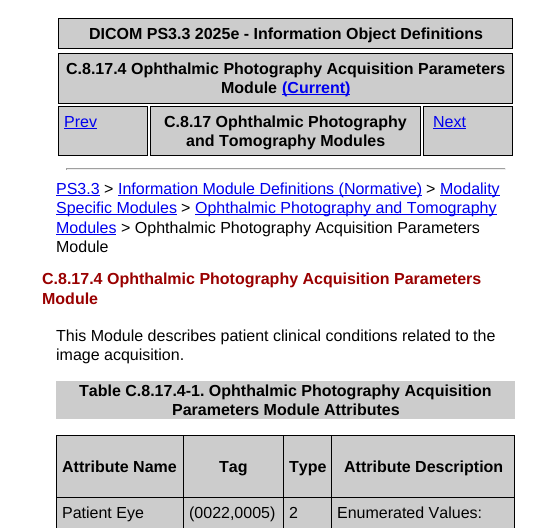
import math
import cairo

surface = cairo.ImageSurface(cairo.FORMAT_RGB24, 560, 528)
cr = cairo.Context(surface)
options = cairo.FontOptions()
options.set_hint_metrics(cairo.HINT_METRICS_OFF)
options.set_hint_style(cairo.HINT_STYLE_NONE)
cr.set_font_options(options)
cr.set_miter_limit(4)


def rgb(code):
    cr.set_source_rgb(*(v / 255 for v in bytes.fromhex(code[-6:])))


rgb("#ffffff")
cr.paint()
rgb("#cccccc")
cr.rectangle(58.5, 18.5, 454, 30)
cr.fill_preserve()
rgb("#000000")
cr.set_line_width(1)
cr.stroke()
rgb("#cccccc")
cr.rectangle(58.5, 53.5, 454, 50)
cr.fill_preserve()
rgb("#000000")
cr.stroke()
rgb("#0000ee")
cr.rectangle(282, 94, 68, 1)
cr.fill()
rgb("#cccccc")
cr.rectangle(58.5, 106.5, 89, 49)
cr.fill_preserve()
rgb("#000000")
cr.stroke()
rgb("#0000ee")
cr.rectangle(64, 128, 33, 1)
cr.fill()
rgb("#cccccc")
cr.rectangle(150.5, 106.5, 270, 49)
cr.fill_preserve()
rgb("#000000")
cr.stroke()
rgb("#cccccc")
cr.rectangle(423.5, 106.5, 89, 49)
cr.fill_preserve()
rgb("#000000")
cr.stroke()
for x, y, w, h, color in [
    (433, 128, 33, 1, "#0000ee"),
    (66, 168, 440, 1, "#9f9f9f"),
    (505, 168, 1, 2, "#eeeeee"),
    (66, 169, 440, 1, "#eeeeee"),
    (66, 168, 1, 2, "#9f9f9f"),
    (56, 195, 44, 1, "#0000ee"),
    (118, 195, 304, 1, "#0000ee"),
    (440, 195, 60, 1, "#0000ee"),
    (56, 214, 121, 1, "#0000ee"),
    (195, 214, 302, 1, "#0000ee"),
    (56, 234, 60, 1, "#0000ee"),
    (56, 381, 459, 38, "#cccccc"),
    (57, 436, 126, 61, "#cccccc"),
    (331, 435, 184, 1, "#000000"),
    (331, 497, 184, 1, "#000000"),
    (331, 497, 1, 31, "#000000"),
    (283, 497, 49, 1, "#000000"),
    (331, 435, 1, 63, "#000000"),
    (283, 435, 49, 1, "#000000"),
    (283, 497, 1, 31, "#000000"),
    (183, 497, 101, 1, "#000000"),
    (283, 435, 1, 63, "#000000"),
    (183, 435, 101, 1, "#000000"),
    (183, 497, 1, 31, "#000000"),
    (56, 497, 128, 1, "#000000"),
    (183, 435, 1, 63, "#000000"),
    (56, 435, 128, 1, "#000000"),
    (56, 497, 1, 31, "#000000"),
    (56, 435, 1, 63, "#000000"),
    (184, 436, 99, 61, "#cccccc"),
    (284, 436, 47, 61, "#cccccc"),
    (332, 436, 182, 61, "#cccccc"),
    (514, 497, 1, 31, "#000000"),
    (514, 435, 1, 63, "#000000"),
    (57, 498, 126, 30, "#cccccc"),
    (184, 498, 99, 30, "#cccccc"),
    (284, 498, 47, 30, "#cccccc"),
    (332, 498, 182, 30, "#cccccc"),
]:
    rgb(color)
    cr.rectangle(x, y, w, h)
    cr.fill()
cr.select_font_face("Liberation Sans", cairo.FONT_SLANT_NORMAL, cairo.FONT_WEIGHT_BOLD)
cr.set_font_size(16)
rgb("#000000")
for x, y, s in [
    (89, 39, "DICOM PS3.3 2025e - Information Object Definitions"),
    (66, 74, "C.8.17.4 Ophthalmic Photography Acquisition Parameters"),
    (221, 93, "Module"),
]:
    cr.move_to(x, y)
    cr.show_text(s)
rgb("#0000ee")
cr.move_to(282, 93)
cr.show_text("(Current)")
cr.select_font_face("Liberation Sans")
cr.move_to(64, 127)
cr.show_text("Prev")
cr.select_font_face("Liberation Sans", cairo.FONT_SLANT_NORMAL, cairo.FONT_WEIGHT_BOLD)
rgb("#000000")
cr.move_to(164, 127)
cr.show_text("C.8.17 Ophthalmic Photography")
cr.move_to(186, 146)
cr.show_text("and Tomography Modules")
cr.select_font_face("Liberation Sans")
rgb("#0000ee")
cr.move_to(433, 127)
cr.show_text("Next")
cr.move_to(56, 194)
cr.show_text("PS3.3")
rgb("#000000")
cr.move_to(104, 194)
cr.show_text(">")
rgb("#0000ee")
cr.move_to(118, 194)
cr.show_text("Information Module Definitions (Normative)")
rgb("#000000")
cr.move_to(426, 194)
cr.show_text(">")
rgb("#0000ee")
cr.move_to(440, 194)
cr.show_text("Modality")
cr.move_to(56, 213)
cr.show_text("Specific Modules")
rgb("#000000")
cr.move_to(181, 213)
cr.show_text(">")
rgb("#0000ee")
cr.move_to(195, 213)
cr.show_text("Ophthalmic Photography and Tomography")
cr.move_to(56, 233)
cr.show_text("Modules")
rgb("#000000")
cr.move_to(121, 233)
cr.show_text("> Ophthalmic Photography Acquisition Parameters")
cr.move_to(56, 252)
cr.show_text("Module")
cr.select_font_face("Liberation Sans", cairo.FONT_SLANT_NORMAL, cairo.FONT_WEIGHT_BOLD)
rgb("#990000")
cr.move_to(42, 284)
cr.show_text("C.8.17.4 Ophthalmic Photography Acquisition Parameters")
cr.move_to(42, 304)
cr.show_text("Module")
cr.select_font_face("Liberation Sans")
rgb("#000000")
cr.move_to(56, 341)
cr.show_text("This Module describes patient clinical conditions related to the")
cr.move_to(56, 360)
cr.show_text("image acquisition.")
cr.select_font_face("Liberation Sans", cairo.FONT_SLANT_NORMAL, cairo.FONT_WEIGHT_BOLD)
for x, y, s in [
    (79, 396, "Table C.8.17.4-1. Ophthalmic Photography Acquisition"),
    (172, 415, "Parameters Module Attributes"),
    (62, 472, "Attribute Name"),
    (219, 472, "Tag"),
    (289, 472, "Type"),
    (344, 472, "Attribute Description"),
]:
    cr.move_to(x, y)
    cr.show_text(s)
cr.select_font_face("Liberation Sans")
for x, y, s in [
    (62, 518, "Patient Eye"),
    (189, 518, "(0022,0005)"),
    (289, 518, "2"),
    (337, 518, "Enumerated Values:"),
]:
    cr.move_to(x, y)
    cr.show_text(s)
surface.write_to_png("page.png")
